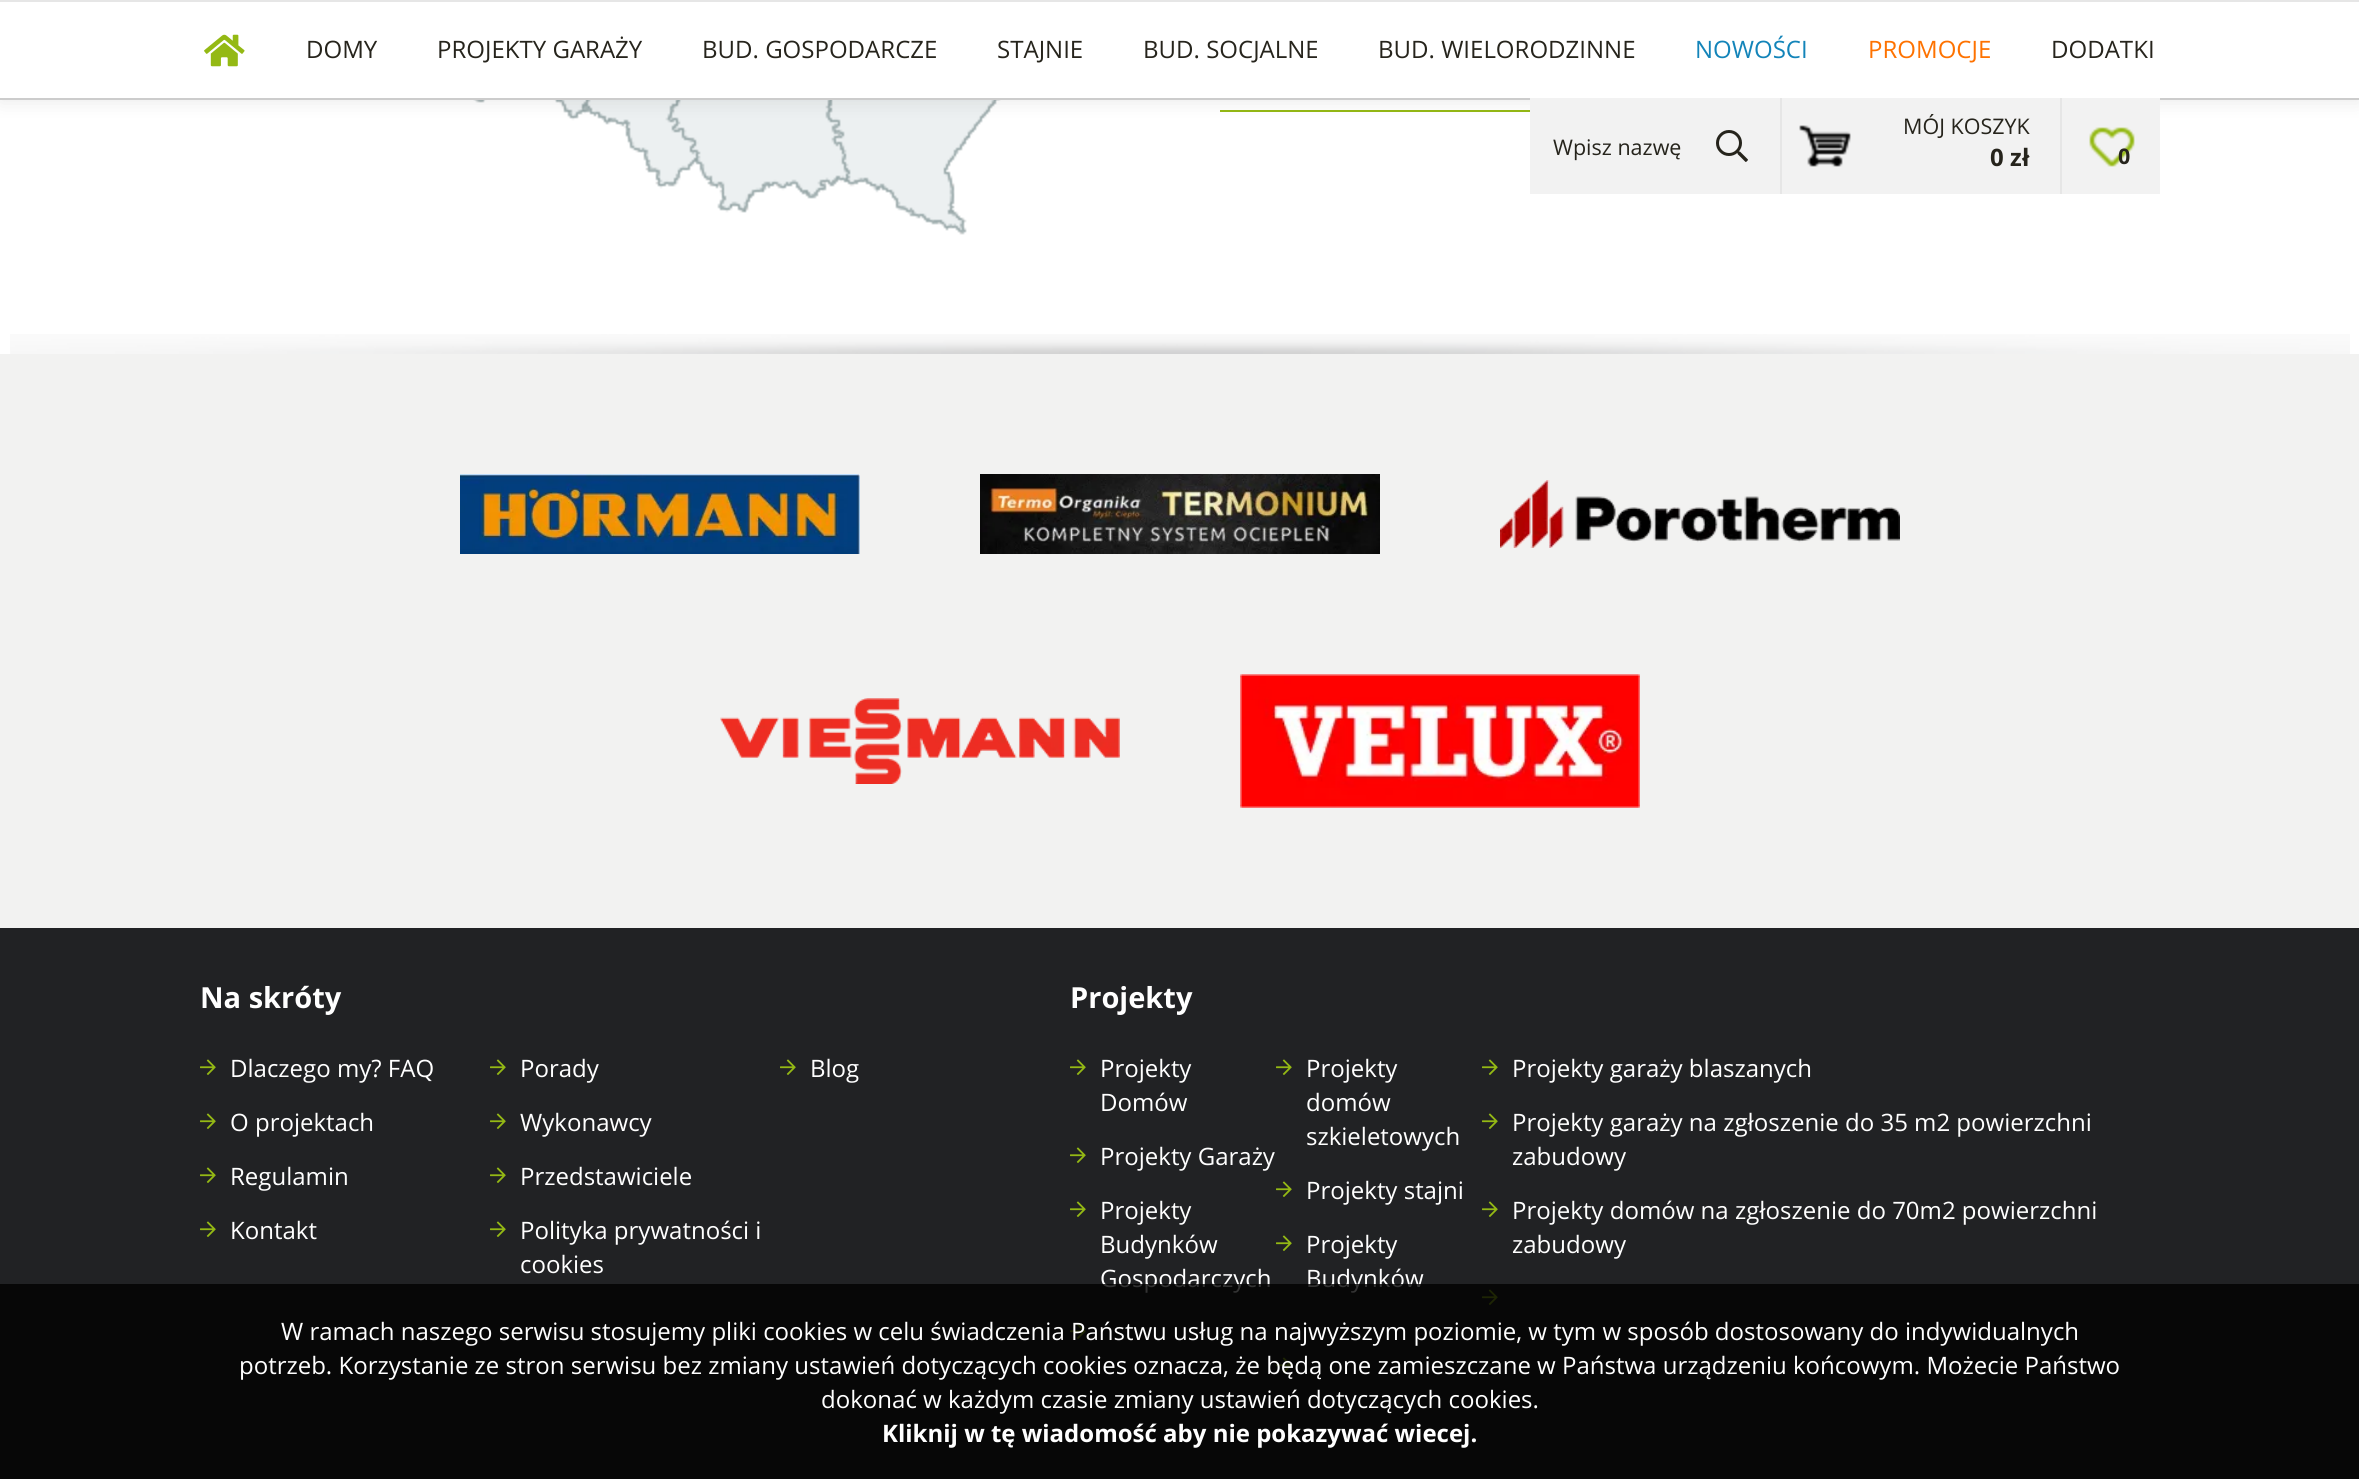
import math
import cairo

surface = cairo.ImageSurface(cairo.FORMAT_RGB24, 2359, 1479)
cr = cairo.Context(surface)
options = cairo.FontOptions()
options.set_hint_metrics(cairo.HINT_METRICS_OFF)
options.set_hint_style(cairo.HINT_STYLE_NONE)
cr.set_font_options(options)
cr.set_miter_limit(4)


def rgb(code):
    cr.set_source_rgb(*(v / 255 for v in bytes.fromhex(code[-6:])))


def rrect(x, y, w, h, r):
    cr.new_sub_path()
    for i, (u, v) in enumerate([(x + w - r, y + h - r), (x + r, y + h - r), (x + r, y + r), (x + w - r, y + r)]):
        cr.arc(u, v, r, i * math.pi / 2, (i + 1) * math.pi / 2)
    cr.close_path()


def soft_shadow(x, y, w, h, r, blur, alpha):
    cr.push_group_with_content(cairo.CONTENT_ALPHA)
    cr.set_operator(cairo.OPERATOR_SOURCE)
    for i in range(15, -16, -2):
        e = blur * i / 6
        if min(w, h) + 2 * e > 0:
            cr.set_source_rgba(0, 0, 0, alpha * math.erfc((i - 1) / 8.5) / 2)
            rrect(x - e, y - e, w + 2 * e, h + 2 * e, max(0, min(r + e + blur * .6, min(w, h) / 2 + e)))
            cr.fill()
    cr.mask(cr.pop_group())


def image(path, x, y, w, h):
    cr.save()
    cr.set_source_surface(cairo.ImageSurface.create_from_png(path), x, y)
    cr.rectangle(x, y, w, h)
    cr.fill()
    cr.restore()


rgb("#ffffff")
cr.paint()
image("img/5.png", 473, 100, 528, 135)
rgb("#94b914")
cr.rectangle(1220, 110, 310, 2)
cr.fill()
rgb("#000000")
soft_shadow(0, 0, 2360, 100, 0, 10, 0.1)
for x, y, w, h, color in [
    (0, 2, 2359, 96, "#ffffff"),
    (0, 0, 2359, 2, "#e6e6e6"),
    (0, 98, 2359, 2, "#cccccc"),
]:
    rgb(color)
    cr.rectangle(x, y, w, h)
    cr.fill()
image("img/1.png", 204, 34, 41, 33)
rgb("#f2f2f2")
cr.rectangle(1530, 98, 250, 96)
cr.fill()
rgb("#e6e6e6")
cr.rectangle(1780, 98, 2, 96)
cr.fill()
image("img/2.png", 1716, 130, 32, 32)
rgb("#f2f2f2")
cr.rectangle(1782, 98, 278, 96)
cr.fill()
image("img/3.png", 1799, 125, 52, 42)
cr.rectangle(2062, 98, 98, 96)
cr.fill()
image("img/4.png", 2089, 127, 46, 40)
rgb("#e6e6e6")
cr.rectangle(2060, 98, 2, 96)
cr.fill()
rgb("#f2f2f1")
cr.rectangle(0, 354, 2359, 574)
cr.fill()
image("img/6.png", 10, 334, 2340, 20)
image("img/7.png", 460, 474, 400, 80)
image("img/8.png", 980, 474, 400, 80)
image("img/9.png", 1500, 480, 400, 68)
image("img/10.png", 720, 698, 400, 86)
image("img/11.png", 1240, 674, 400, 134)
rgb("#212224")
cr.rectangle(0, 928, 2359, 551)
cr.fill()
image("img/12.png", 200, 1059, 16, 16)
image("img/12.png", 200, 1113, 16, 16)
image("img/12.png", 200, 1167, 16, 16)
image("img/12.png", 200, 1221, 16, 16)
image("img/12.png", 490, 1059, 16, 16)
image("img/12.png", 490, 1113, 16, 16)
image("img/12.png", 490, 1167, 16, 16)
image("img/12.png", 490, 1221, 16, 16)
image("img/12.png", 780, 1059, 16, 16)
image("img/12.png", 1070, 1059, 16, 16)
image("img/12.png", 1070, 1147, 16, 16)
image("img/12.png", 1070, 1201, 16, 16)
image("img/12.png", 1070, 1323, 16, 16)
image("img/12.png", 1276, 1059, 16, 16)
image("img/12.png", 1276, 1181, 16, 16)
image("img/12.png", 1276, 1235, 16, 16)
image("img/12.png", 1276, 1357, 16, 16)
image("img/12.png", 1482, 1059, 16, 16)
image("img/12.png", 1482, 1113, 16, 16)
image("img/12.png", 1482, 1201, 16, 16)
image("img/12.png", 1482, 1289, 16, 16)
cr.select_font_face("Open Sans")
cr.set_font_size(24)
rgb("#26241c")
for x, y, s in [
    (306, 58, "DOMY"),
    (437, 58, "PROJEKTY GARAŻY"),
    (702, 58, "BUD. GOSPODARCZE"),
    (997, 58, "STAJNIE"),
    (1143, 58, "BUD. SOCJALNE"),
    (1378, 58, "BUD. WIELORODZINNE"),
]:
    cr.move_to(x, y)
    cr.show_text(s)
rgb("#1384b9")
cr.move_to(1695, 58)
cr.show_text("NOWOŚCI")
rgb("#fe7200")
cr.move_to(1868, 58)
cr.show_text("PROMOCJE")
rgb("#26241c")
cr.move_to(2051, 58)
cr.show_text("DODATKI")
cr.set_font_size(21.5)
cr.move_to(1553, 155)
cr.show_text("Wpisz nazwę")
cr.move_to(1903, 134)
cr.show_text("MÓJ KOSZYK")
cr.select_font_face("Open Sans", cairo.FONT_SLANT_NORMAL, cairo.FONT_WEIGHT_BOLD)
cr.set_font_size(24)
cr.move_to(1990, 166)
cr.show_text("0 zł")
cr.set_font_size(21.5)
cr.move_to(2118, 164)
cr.show_text("0")
cr.set_font_size(29)
rgb("#ffffff")
cr.move_to(200, 1008)
cr.show_text("Na skróty")
cr.select_font_face("Open Sans")
cr.set_font_size(24)
for x, y, s in [
    (230, 1077, "Dlaczego my? FAQ"),
    (230, 1131, "O projektach"),
    (230, 1185, "Regulamin"),
    (230, 1239, "Kontakt"),
    (520, 1077, "Porady"),
    (520, 1131, "Wykonawcy"),
    (520, 1185, "Przedstawiciele"),
    (520, 1239, "Polityka prywatności i"),
    (520, 1273, "cookies"),
    (810, 1077, "Blog"),
]:
    cr.move_to(x, y)
    cr.show_text(s)
cr.select_font_face("Open Sans", cairo.FONT_SLANT_NORMAL, cairo.FONT_WEIGHT_BOLD)
cr.set_font_size(29)
cr.move_to(1070, 1008)
cr.show_text("Projekty")
cr.select_font_face("Open Sans")
cr.set_font_size(24)
for x, y, s in [
    (1100, 1077, "Projekty"),
    (1100, 1111, "Domów"),
    (1100, 1165, "Projekty Garaży"),
    (1100, 1219, "Projekty"),
    (1100, 1253, "Budynków"),
    (1100, 1287, "Gospodarczych"),
    (1306, 1077, "Projekty"),
    (1306, 1111, "domów"),
    (1306, 1145, "szkieletowych"),
    (1306, 1199, "Projekty stajni"),
    (1306, 1253, "Projekty"),
    (1306, 1287, "Budynków"),
    (1512, 1077, "Projekty garaży blaszanych"),
    (1512, 1131, "Projekty garaży na zgłoszenie do 35 m2 powierzchni"),
    (1512, 1165, "zabudowy"),
    (1512, 1219, "Projekty domów na zgłoszenie do 70m2 powierzchni"),
    (1512, 1253, "zabudowy"),
]:
    cr.move_to(x, y)
    cr.show_text(s)
cr.set_source_rgba(0, 0, 0, 0.8)
cr.rectangle(0, 1284, 2359, 195)
cr.fill()
rgb("#ffffff")
for x, y, s in [
    (281, 1340, "W ramach naszego serwisu stosujemy pliki cookies w celu świadczenia Państwu usług na najwyższym poziomie, w tym w sposób dostosowany do indywidualnych"),
    (239, 1374, "potrzeb. Korzystanie ze stron serwisu bez zmiany ustawień dotyczących cookies oznacza, że będą one zamieszczane w Państwa urządzeniu końcowym. Możecie Państwo"),
    (821, 1408, "dokonać w każdym czasie zmiany ustawień dotyczących cookies."),
]:
    cr.move_to(x, y)
    cr.show_text(s)
cr.select_font_face("Open Sans", cairo.FONT_SLANT_NORMAL, cairo.FONT_WEIGHT_BOLD)
cr.move_to(882, 1442)
cr.show_text("Kliknij w tę wiadomość aby nie pokazywać wiecej.")
surface.write_to_png("page.png")
